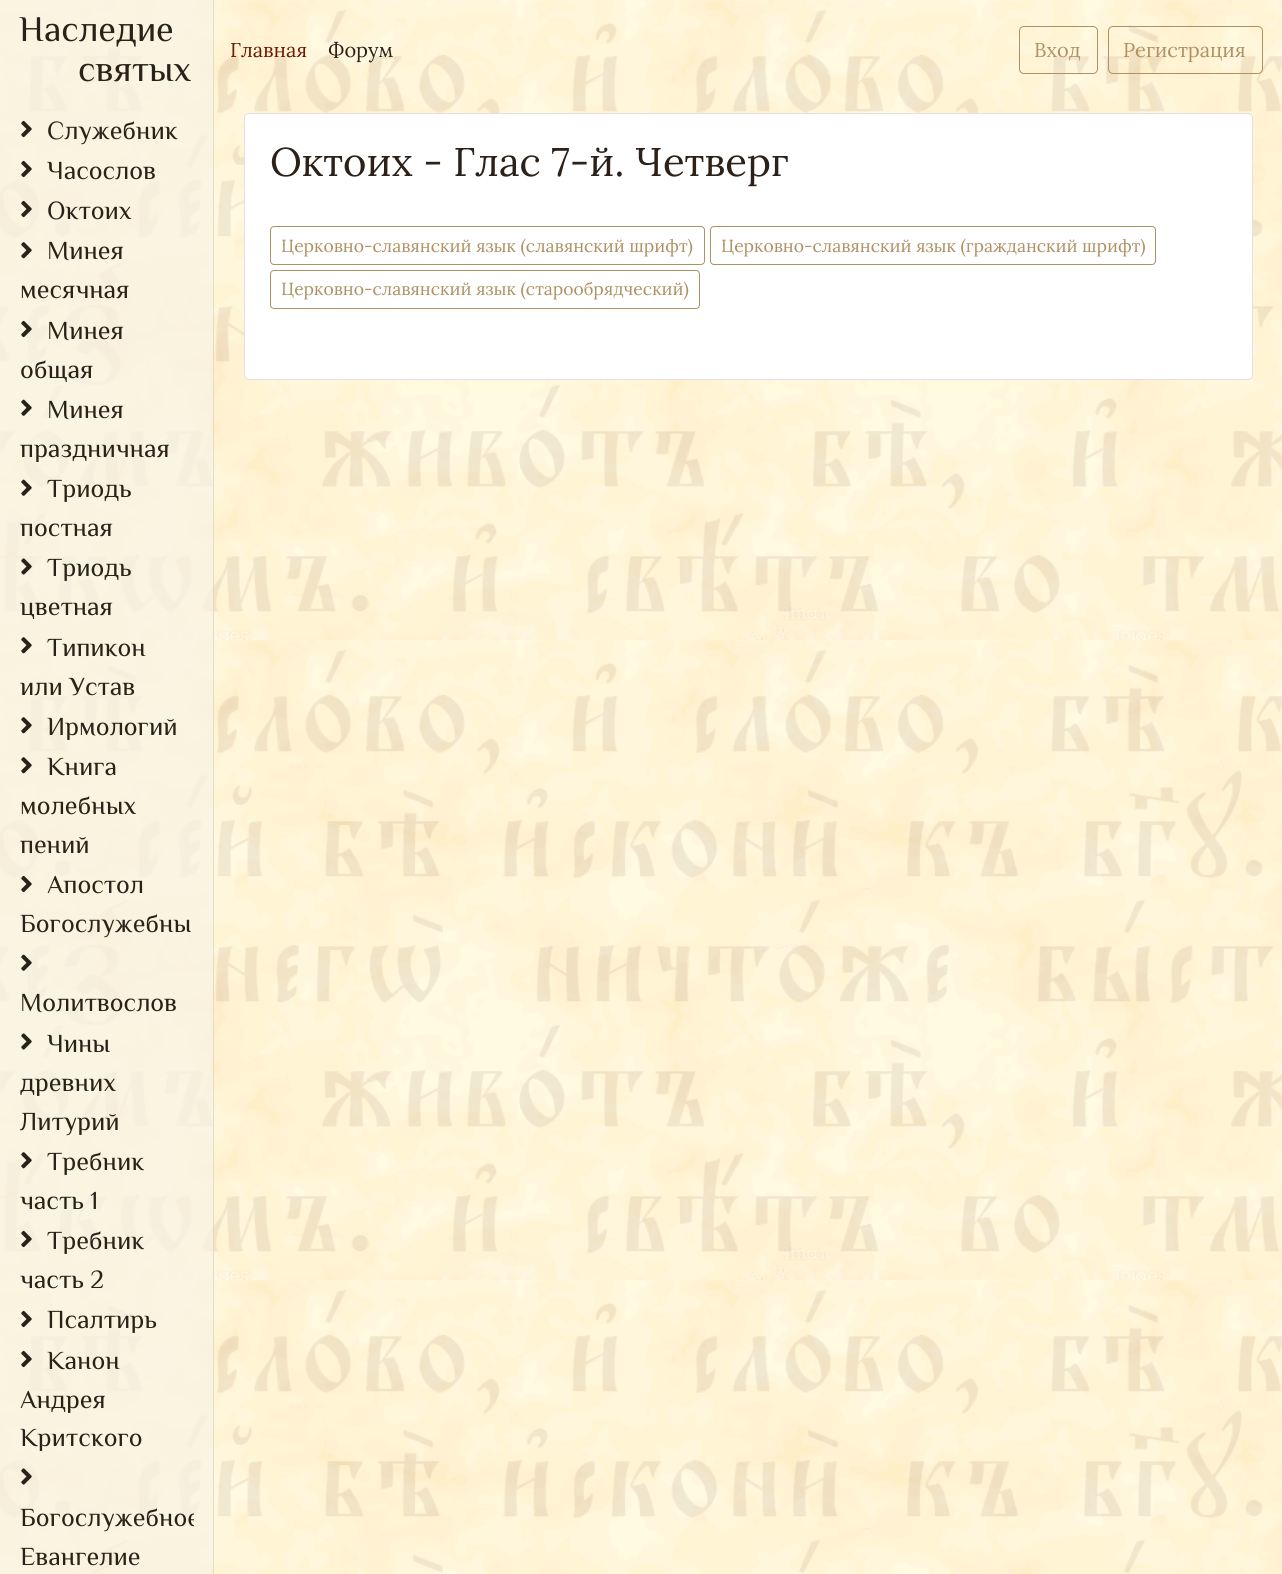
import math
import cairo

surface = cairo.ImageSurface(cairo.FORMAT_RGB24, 1282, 1574)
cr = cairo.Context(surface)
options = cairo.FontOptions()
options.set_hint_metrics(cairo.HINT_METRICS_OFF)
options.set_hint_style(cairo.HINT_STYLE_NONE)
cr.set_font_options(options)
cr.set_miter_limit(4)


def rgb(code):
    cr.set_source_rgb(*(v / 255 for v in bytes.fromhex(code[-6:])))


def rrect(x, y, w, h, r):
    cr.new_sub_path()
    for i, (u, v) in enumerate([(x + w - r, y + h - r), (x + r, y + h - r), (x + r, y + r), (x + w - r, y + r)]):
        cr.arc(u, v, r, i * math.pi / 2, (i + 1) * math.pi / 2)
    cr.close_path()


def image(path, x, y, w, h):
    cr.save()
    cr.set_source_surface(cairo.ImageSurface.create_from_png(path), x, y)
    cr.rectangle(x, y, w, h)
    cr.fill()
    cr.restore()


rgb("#ffffff")
cr.paint()
image("img/1.png", 0, 0, 1282, 1574)
rrect(1019.5, 26.5, 78, 47, 4.5)
rgb("#af9164")
cr.set_line_width(1)
cr.stroke()
rrect(1108.5, 26.5, 154, 47, 4.5)
cr.stroke()
cr.set_source_rgba(0.969, 0.953, 0.89, 0.75)
cr.rectangle(0, 0, 214, 1574)
cr.fill()
cr.set_source_rgba(0, 0, 0, 0.1)
cr.rectangle(213, 0, 1, 1574)
cr.fill()
image("img/2.png", 21, 120, 11, 18)
image("img/3.png", 21, 160, 11, 18)
image("img/4.png", 21, 200, 11, 18)
image("img/5.png", 21, 242, 11, 17)
image("img/6.png", 21, 320, 11, 18)
image("img/7.png", 21, 399, 11, 17)
image("img/8.png", 21, 479, 11, 17)
image("img/9.png", 21, 558, 11, 17)
image("img/10.png", 21, 637, 11, 17)
image("img/11.png", 21, 717, 11, 17)
image("img/12.png", 21, 757, 11, 17)
image("img/13.png", 21, 875, 11, 18)
image("img/14.png", 21, 954, 11, 17)
image("img/15.png", 21, 1033, 11, 17)
image("img/16.png", 21, 1152, 11, 17)
image("img/17.png", 21, 1230, 11, 18)
image("img/18.png", 21, 1310, 11, 18)
image("img/19.png", 21, 1350, 11, 18)
image("img/20.png", 21, 1468, 11, 17)
rgb("#ffffff")
rrect(244, 113, 1009, 267, 5)
cr.fill()
rrect(244.5, 113.5, 1008, 266, 4.5)
cr.set_source_rgba(0, 0, 0, 0.12)
cr.stroke()
rrect(270.5, 226.5, 434, 38, 3.5)
rgb("#af9164")
cr.stroke()
rrect(710.5, 226.5, 445, 38, 3.5)
cr.stroke()
rrect(270.5, 270.5, 429, 38, 3.5)
cr.stroke()
cr.select_font_face("Philosopher")
cr.set_font_size(36)
rgb("#2b2118")
cr.move_to(19, 41)
cr.show_text("Наследие")
cr.move_to(78, 81)
cr.show_text("святых")
cr.select_font_face("Lora")
cr.set_font_size(20)
rgb("#6f1a07")
cr.move_to(230, 57)
cr.show_text("Главная")
rgb("#2b2118")
cr.move_to(328, 57)
cr.show_text("Форум")
rgb("#af9164")
cr.move_to(1034, 57)
cr.show_text("Вход")
cr.move_to(1123, 57)
cr.show_text("Регистрация")
cr.select_font_face("Philosopher")
cr.set_font_size(26)
rgb("#2b2118")
for x, y, s in [
    (47, 139, "Служебник"),
    (47, 179, "Часослов"),
    (47, 219, "Октоих"),
    (47, 259, "Минея"),
    (20, 298, "месячная"),
    (47, 339, "Минея"),
    (20, 378, "общая"),
    (47, 418, "Минея"),
    (20, 457, "праздничная"),
    (47, 497, "Триодь"),
    (20, 536, "постная"),
    (47, 576, "Триодь"),
    (20, 615, "цветная"),
    (47, 656, "Типикон"),
    (20, 695, "или Устав"),
    (47, 735, "Ирмологий"),
    (47, 775, "Книга"),
    (20, 814, "молебных"),
    (20, 853, "пений"),
    (47, 893, "Апостол"),
    (20, 932, "Богослужебны"),
    (20, 1011, "Молитвослов"),
    (47, 1052, "Чины"),
    (20, 1091, "древних"),
    (20, 1130, "Литурий"),
    (47, 1170, "Требник"),
    (20, 1209, "часть 1"),
    (47, 1249, "Требник"),
    (20, 1288, "часть 2"),
    (47, 1328, "Псалтирь"),
    (47, 1369, "Канон"),
    (20, 1408, "Андрея"),
    (20, 1446, "Критского"),
]:
    cr.move_to(x, y)
    cr.show_text(s)
cr.save()
cr.rectangle(20, 100, 174, 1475)
cr.clip()
cr.move_to(20, 1526)
cr.show_text("Богослужебное")
cr.restore()
cr.move_to(20, 1565)
cr.show_text("Евангелие")
cr.select_font_face("Lora")
cr.set_font_size(40)
cr.move_to(270, 176)
cr.show_text("Октоих - Глас 7-й. Четверг")
cr.set_font_size(17.5)
rgb("#af9164")
for x, y, s in [
    (281, 252, "Церковно-cлавянский язык (славянский шрифт)"),
    (721, 252, "Церковно-cлавянский язык (гражданский шрифт)"),
    (281, 295, "Церковно-славянский язык (старообрядческий)"),
]:
    cr.move_to(x, y)
    cr.show_text(s)
surface.write_to_png("page.png")
